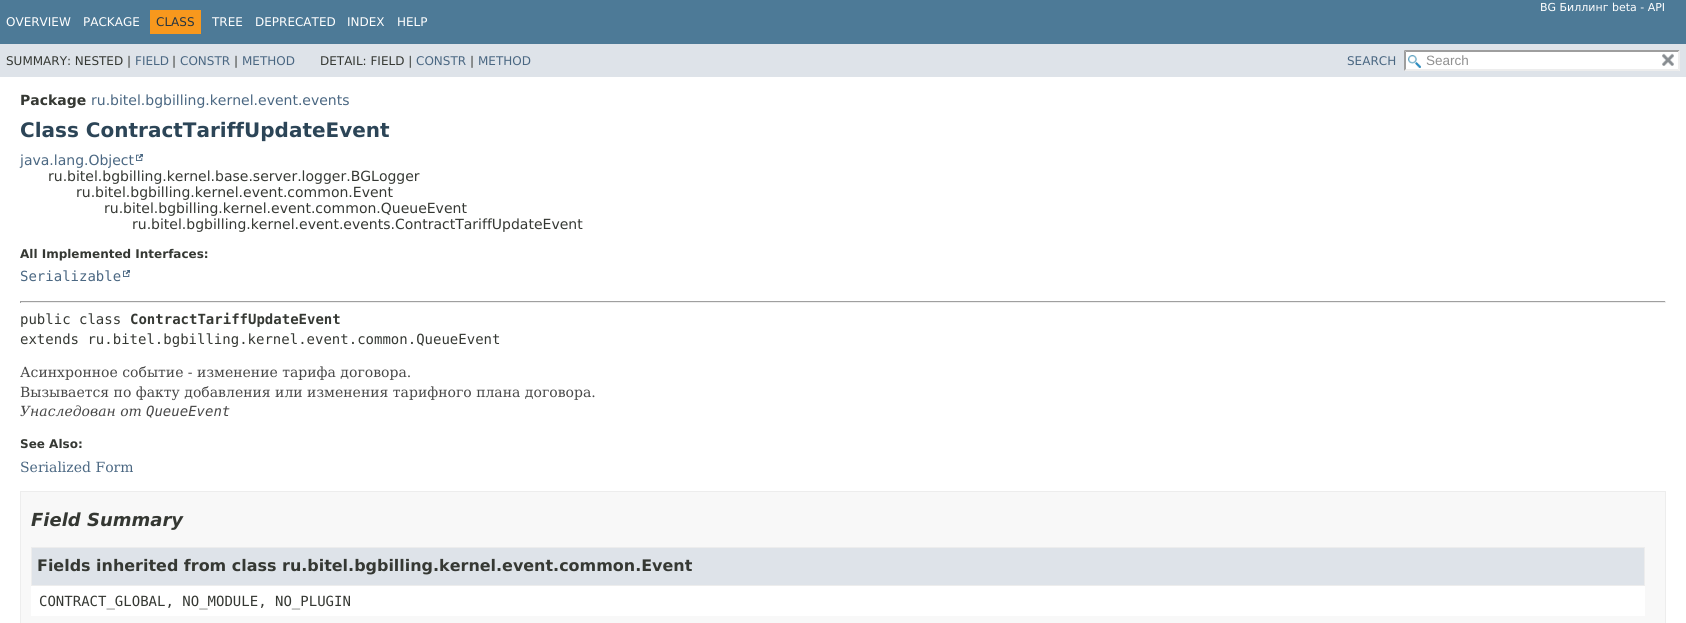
import math
import cairo

surface = cairo.ImageSurface(cairo.FORMAT_RGB24, 1686, 623)
cr = cairo.Context(surface)
options = cairo.FontOptions()
options.set_hint_metrics(cairo.HINT_METRICS_OFF)
options.set_hint_style(cairo.HINT_STYLE_NONE)
cr.set_font_options(options)
cr.set_miter_limit(4)


def rgb(code):
    cr.set_source_rgb(*(v / 255 for v in bytes.fromhex(code[-6:])))


def image(path, x, y, w, h):
    cr.save()
    cr.set_source_surface(cairo.ImageSurface.create_from_png(path), x, y)
    cr.rectangle(x, y, w, h)
    cr.fill()
    cr.restore()


rgb("#ffffff")
cr.paint()
for x, y, w, h, color in [
    (0, 0, 1686, 44, "#4d7a97"),
    (150, 10, 51, 24, "#f8981d"),
    (0, 44, 1686, 33, "#dee3e9"),
    (1404, 50, 276, 21, "#ffffff"),
]:
    rgb(color)
    cr.rectangle(x, y, w, h)
    cr.fill()
image("img/1.png", 1408, 55, 13, 13)
rgb("#9e9e9e")
cr.new_path()
cr.move_to(1404, 50)
cr.line_to(1680, 50)
cr.line_to(1678, 52)
cr.line_to(1406, 52)
cr.close_path()
cr.fill()
rgb("#ededed")
cr.new_path()
cr.move_to(1680, 50)
cr.line_to(1680, 71)
cr.line_to(1678, 69)
cr.line_to(1678, 52)
cr.close_path()
cr.fill()
cr.new_path()
cr.move_to(1680, 71)
cr.line_to(1404, 71)
cr.line_to(1406, 69)
cr.line_to(1678, 69)
cr.close_path()
cr.fill()
rgb("#9e9e9e")
cr.new_path()
cr.move_to(1404, 71)
cr.line_to(1404, 50)
cr.line_to(1406, 52)
cr.line_to(1406, 69)
cr.close_path()
cr.fill()
image("img/2.png", 1662, 53, 12, 13)
image("img/3.png", 136, 154, 7, 7)
image("img/3.png", 123, 270, 7, 7)
for x, y, w, h, color in [
    (20, 301, 1646, 1, "#9f9f9f"),
    (1665, 301, 1, 2, "#eeeeee"),
    (20, 302, 1646, 1, "#eeeeee"),
    (20, 301, 1, 2, "#9f9f9f"),
]:
    rgb(color)
    cr.rectangle(x, y, w, h)
    cr.fill()
rgb("#f8f8f8")
cr.rectangle(20.5, 491.5, 1645, 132)
cr.fill_preserve()
rgb("#ededed")
cr.set_line_width(1)
cr.stroke()
rgb("#ffffff")
cr.rectangle(31, 586, 1614, 30)
cr.fill()
rgb("#dee3e9")
cr.rectangle(31.5, 547.5, 1613, 38)
cr.fill_preserve()
rgb("#ededed")
cr.stroke()
cr.select_font_face("DejaVu Sans")
cr.set_font_size(11)
rgb("#ffffff")
cr.move_to(1540, 11)
cr.show_text("BG Биллинг beta - API")
cr.set_font_size(12)
cr.move_to(6, 26)
cr.show_text("OVERVIEW")
cr.move_to(83, 26)
cr.show_text("PACKAGE")
rgb("#253441")
cr.move_to(156, 26)
cr.show_text("CLASS")
rgb("#ffffff")
for x, y, s in [
    (212, 26, "TREE"),
    (255, 26, "DEPRECATED"),
    (347, 26, "INDEX"),
    (397, 26, "HELP"),
]:
    cr.move_to(x, y)
    cr.show_text(s)
rgb("#353833")
cr.move_to(6, 65)
cr.show_text("SUMMARY: NESTED |")
rgb("#4a6782")
cr.move_to(135, 65)
cr.show_text("FIELD")
rgb("#353833")
cr.move_to(172, 65)
cr.show_text("|")
rgb("#4a6782")
cr.move_to(180, 65)
cr.show_text("CONSTR")
rgb("#353833")
cr.move_to(234, 65)
cr.show_text("|")
rgb("#4a6782")
cr.move_to(242, 65)
cr.show_text("METHOD")
rgb("#353833")
cr.move_to(320, 65)
cr.show_text("DETAIL: FIELD |")
rgb("#4a6782")
cr.move_to(416, 65)
cr.show_text("CONSTR")
rgb("#353833")
cr.move_to(470, 65)
cr.show_text("|")
rgb("#4a6782")
cr.move_to(478, 65)
cr.show_text("METHOD")
cr.move_to(1347, 65)
cr.show_text("SEARCH")
cr.select_font_face("Liberation Sans")
cr.set_font_size(13.5)
rgb("#909090")
cr.move_to(1426, 65)
cr.show_text("Search")
cr.select_font_face("DejaVu Sans", cairo.FONT_SLANT_NORMAL, cairo.FONT_WEIGHT_BOLD)
cr.set_font_size(14)
rgb("#353833")
cr.move_to(20, 105)
cr.show_text("Package")
cr.select_font_face("DejaVu Sans")
rgb("#4a6782")
cr.move_to(91, 105)
cr.show_text("ru.bitel.bgbilling.kernel.event.events")
cr.select_font_face("DejaVu Sans", cairo.FONT_SLANT_NORMAL, cairo.FONT_WEIGHT_BOLD)
cr.set_font_size(20)
rgb("#2c4557")
cr.move_to(20, 137)
cr.show_text("Class ContractTariffUpdateEvent")
cr.select_font_face("DejaVu Sans")
cr.set_font_size(14)
rgb("#4a6782")
cr.move_to(20, 165)
cr.show_text("java.lang.Object")
rgb("#353833")
for x, y, s in [
    (48, 181, "ru.bitel.bgbilling.kernel.base.server.logger.BGLogger"),
    (76, 197, "ru.bitel.bgbilling.kernel.event.common.Event"),
    (104, 213, "ru.bitel.bgbilling.kernel.event.common.QueueEvent"),
    (132, 229, "ru.bitel.bgbilling.kernel.event.events.ContractTariffUpdateEvent"),
]:
    cr.move_to(x, y)
    cr.show_text(s)
cr.select_font_face("DejaVu Sans", cairo.FONT_SLANT_NORMAL, cairo.FONT_WEIGHT_BOLD)
cr.set_font_size(12)
cr.move_to(20, 258)
cr.show_text("All Implemented Interfaces:")
cr.select_font_face("DejaVu Sans Mono")
cr.set_font_size(14)
rgb("#4a6782")
cr.move_to(20, 281)
cr.show_text("Serializable")
rgb("#353833")
cr.move_to(20, 324)
cr.show_text("public class")
cr.select_font_face("DejaVu Sans Mono", cairo.FONT_SLANT_NORMAL, cairo.FONT_WEIGHT_BOLD)
cr.move_to(130, 324)
cr.show_text("ContractTariffUpdateEvent")
cr.select_font_face("DejaVu Sans Mono")
cr.move_to(20, 344)
cr.show_text("extends ru.bitel.bgbilling.kernel.event.common.QueueEvent")
cr.select_font_face("DejaVu Serif")
rgb("#474747")
cr.move_to(20, 377)
cr.show_text("Асинхронное событие - изменение тарифа договора.")
cr.move_to(20, 397)
cr.show_text("Вызывается по факту добавления или изменения тарифного плана договора.")
cr.select_font_face("DejaVu Serif", cairo.FONT_SLANT_ITALIC)
cr.move_to(20, 416)
cr.show_text("Унаследован от")
cr.select_font_face("DejaVu Sans Mono", cairo.FONT_SLANT_ITALIC)
cr.move_to(146, 416)
cr.show_text("QueueEvent")
cr.select_font_face("DejaVu Sans", cairo.FONT_SLANT_NORMAL, cairo.FONT_WEIGHT_BOLD)
cr.set_font_size(12)
rgb("#353833")
cr.move_to(20, 448)
cr.show_text("See Also:")
cr.select_font_face("DejaVu Serif")
cr.set_font_size(14)
rgb("#4a6782")
cr.move_to(20, 472)
cr.show_text("Serialized Form")
cr.select_font_face("DejaVu Sans", cairo.FONT_SLANT_ITALIC, cairo.FONT_WEIGHT_BOLD)
cr.set_font_size(18)
rgb("#353833")
cr.move_to(31, 526)
cr.show_text("Field Summary")
cr.select_font_face("DejaVu Sans", cairo.FONT_SLANT_NORMAL, cairo.FONT_WEIGHT_BOLD)
cr.set_font_size(15.95)
cr.move_to(37, 571)
cr.show_text("Fields inherited from class ru.bitel.bgbilling.kernel.event.common.Event")
cr.select_font_face("DejaVu Sans Mono")
cr.set_font_size(14)
cr.move_to(39, 606)
cr.show_text("CONTRACT_GLOBAL, NO_MODULE, NO_PLUGIN")
surface.write_to_png("page.png")
